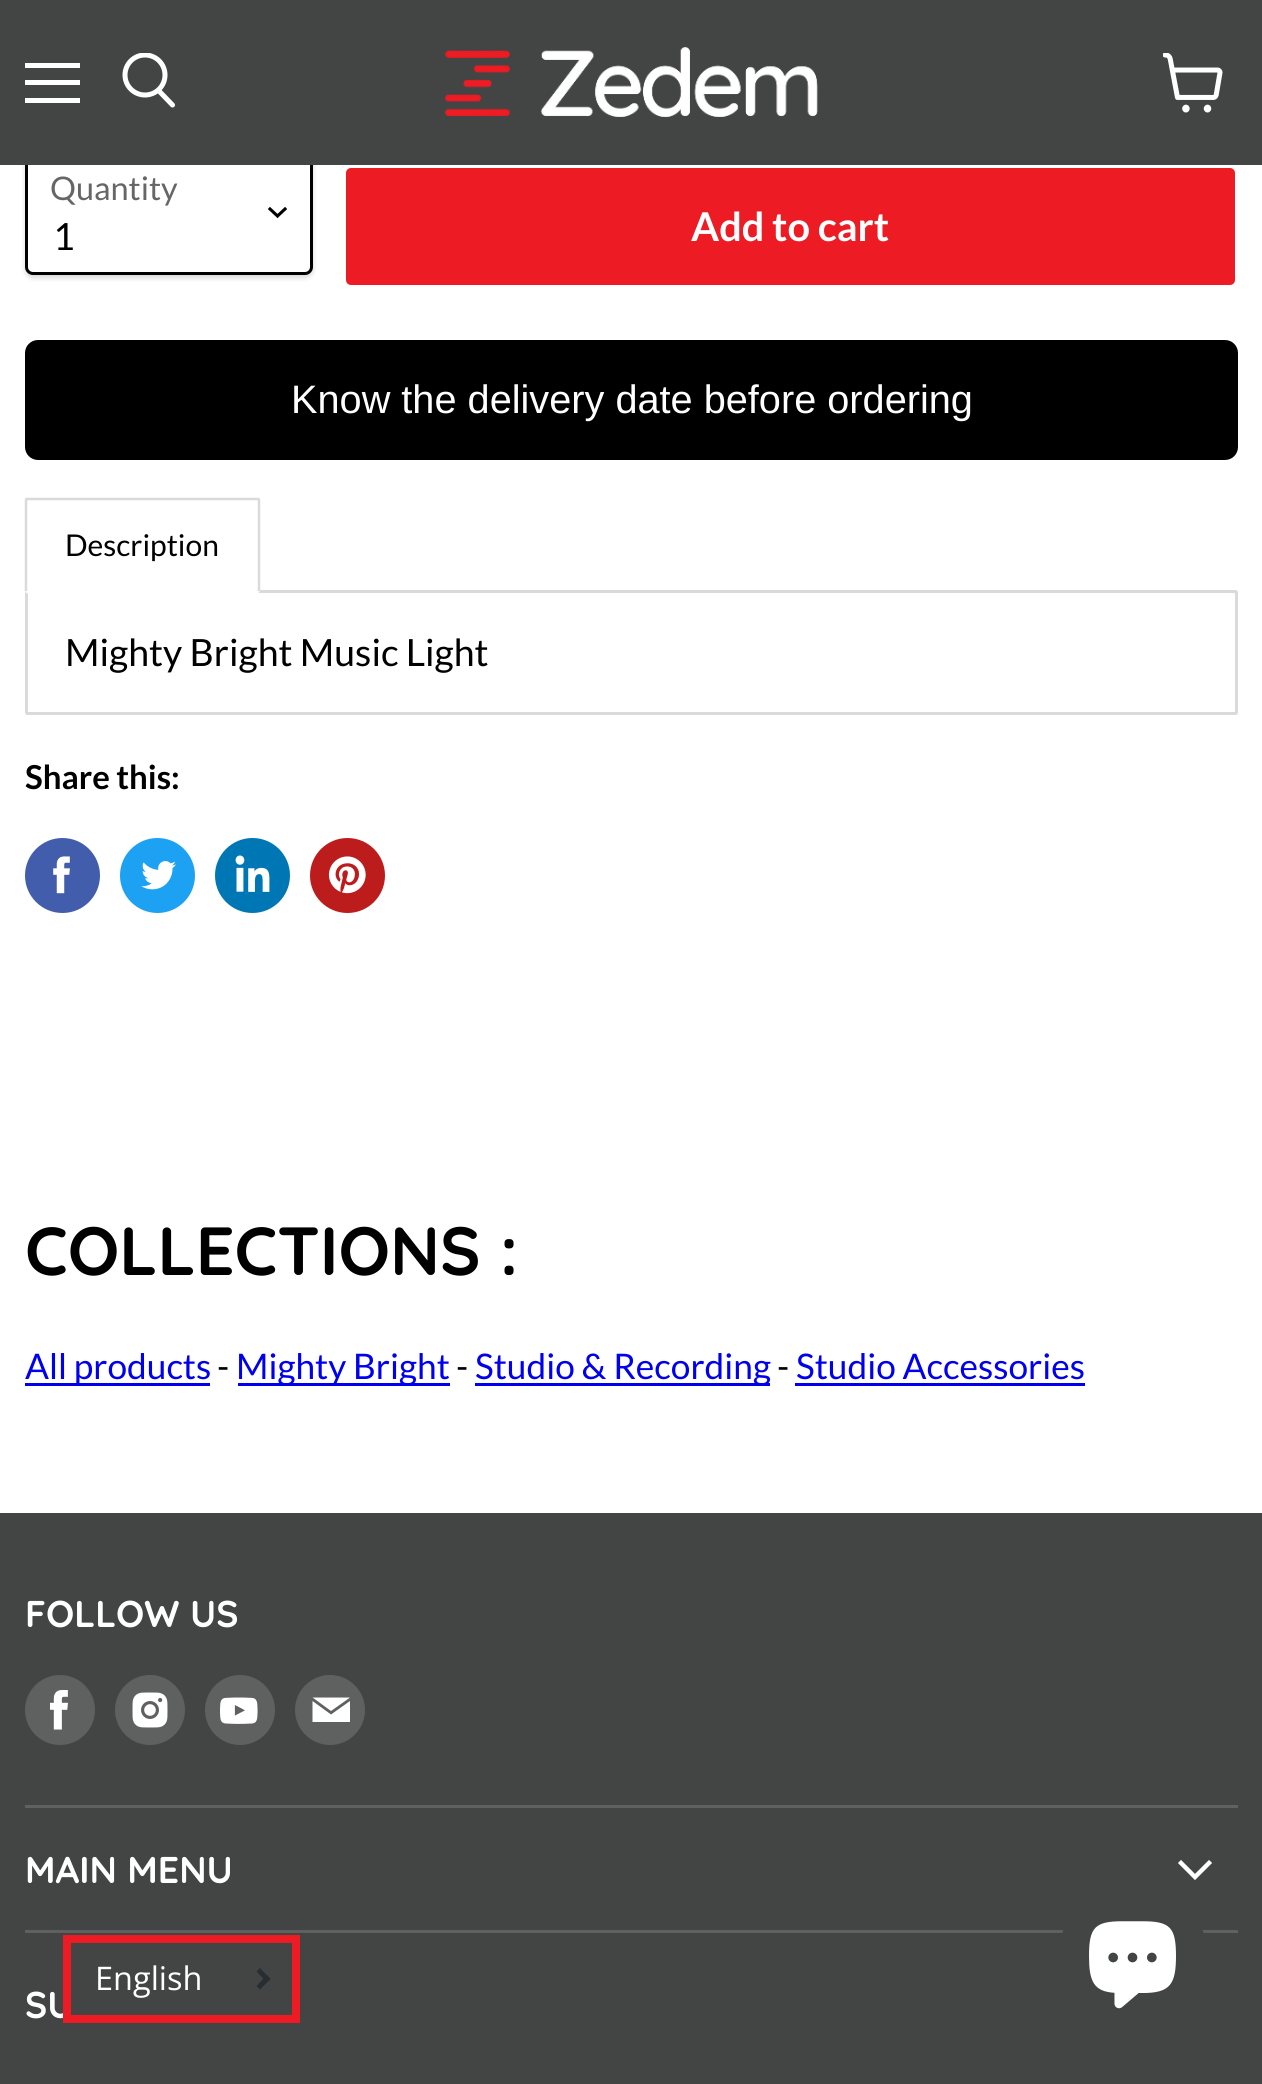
import math
import cairo

surface = cairo.ImageSurface(cairo.FORMAT_RGB24, 1262, 2084)
cr = cairo.Context(surface)
options = cairo.FontOptions()
options.set_hint_metrics(cairo.HINT_METRICS_OFF)
options.set_hint_style(cairo.HINT_STYLE_NONE)
cr.set_font_options(options)
cr.set_miter_limit(4)


def rgb(code):
    cr.set_source_rgb(*(v / 255 for v in bytes.fromhex(code[-6:])))


def rrect(x, y, w, h, r):
    cr.new_sub_path()
    for i, (u, v) in enumerate([(x + w - r, y + h - r), (x + r, y + h - r), (x + r, y + r), (x + w - r, y + r)]):
        cr.arc(u, v, r, i * math.pi / 2, (i + 1) * math.pi / 2)
    cr.close_path()


def soft_shadow(x, y, w, h, r, blur, alpha):
    cr.push_group_with_content(cairo.CONTENT_ALPHA)
    cr.set_operator(cairo.OPERATOR_SOURCE)
    for i in range(15, -16, -2):
        e = blur * i / 6
        if min(w, h) + 2 * e > 0:
            cr.set_source_rgba(0, 0, 0, alpha * math.erfc((i - 1) / 8.5) / 2)
            rrect(x - e, y - e, w + 2 * e, h + 2 * e, max(0, min(r + e + blur * .6, min(w, h) / 2 + e)))
            cr.fill()
    cr.mask(cr.pop_group())


def image(path, x, y, w, h):
    cr.save()
    cr.set_source_surface(cairo.ImageSurface.create_from_png(path), x, y)
    cr.rectangle(x, y, w, h)
    cr.fill()
    cr.restore()


rgb("#ffffff")
cr.paint()
rgb("#000000")
soft_shadow(25, 155, 288, 123, 8, 2.5, 0.15)
rgb("#ffffff")
rrect(26.5, 154.5, 285, 119, 6.5)
cr.fill_preserve()
rgb("#000000")
cr.set_line_width(3)
cr.stroke()
for x, y, w, h, color in [
    (0, 0, 1262, 165, "#434444"),
    (25, 63, 55, 5, "#ffffff"),
    (25, 80, 55, 5, "#ffffff"),
    (25, 98, 55, 5, "#ffffff"),
]:
    rgb(color)
    cr.rectangle(x, y, w, h)
    cr.fill()
cr.new_path()
cr.move_to(172.5, 105)
cr.line_to(159, 91)
cr.set_line_width(5)
cr.set_line_cap(cairo.LINE_CAP_ROUND)
cr.stroke()
cr.save()
cr.rectangle(120, 53, 58, 60)
cr.clip()
cr.arc(145, 75, 20, 0, 2 * math.pi)
cr.set_line_cap(cairo.LINE_CAP_BUTT)
cr.stroke()
cr.restore()
image("img/1.png", 444, 47, 374, 70)
image("img/2.png", 1163, 53, 60, 60)
cr.new_path()
cr.move_to(277.5, 216)
cr.line_to(285, 209)
cr.move_to(277.5, 216)
cr.line_to(270, 209)
rgb("#000000")
cr.set_line_width(3.1)
cr.set_line_cap(cairo.LINE_CAP_SQUARE)
cr.stroke()
rgb("#ed1c24")
rrect(344.5, 166.5, 892, 120, 6.5)
cr.fill_preserve()
rgb("#ffffff")
cr.set_line_width(3)
cr.set_line_cap(cairo.LINE_CAP_BUTT)
cr.stroke()
rgb("#000000")
rrect(25, 340, 1213, 120, 13)
cr.fill()
rrect(26.5, 591.5, 1210, 122, 1)
rgb("#dbdada")
cr.stroke()
rgb("#ffffff")
rrect(25, 498, 235, 95, 2.5)
cr.fill()
cr.new_path()
cr.move_to(258.5, 591)
cr.line_to(66, 591)
cr.curve_to(52.5, 591, 36, 600, 26.5, 591)
cr.set_line_width(2.5)
cr.stroke()
cr.new_path()
cr.move_to(26.5, 591)
cr.line_to(26, 590)
cr.line_to(26, 500)
cr.line_to(26.5, 499)
cr.line_to(27.5, 499)
cr.line_to(257.5, 499)
cr.line_to(258.5, 499)
cr.line_to(259, 500)
cr.line_to(259, 590)
cr.line_to(258.5, 591)
rgb("#dbdada")
cr.stroke()
rgb("#425dab")
cr.arc(62.5, 875.5, 37.5, 0, 2 * math.pi)
cr.fill()
image("img/3.png", 53, 856, 17, 38)
rgb("#1da1f2")
cr.arc(157.5, 875.5, 37.5, 0, 2 * math.pi)
cr.fill()
image("img/4.png", 141, 861, 35, 29)
rgb("#0077b5")
cr.arc(252.5, 875.5, 37.5, 0, 2 * math.pi)
cr.fill()
image("img/5.png", 235, 855, 35, 37)
rgb("#bd1c1c")
cr.arc(347.5, 875.5, 37.5, 0, 2 * math.pi)
cr.fill()
image("img/6.png", 328, 856, 38, 38)
for x, y, w, h, color in [
    (25, 1383, 185, 3, "#0000ee"),
    (238, 1383, 212, 3, "#0000ee"),
    (475, 1383, 295, 3, "#0000ee"),
    (795, 1383, 290, 3, "#0000ee"),
    (0, 1513, 1262, 571, "#434444"),
    (25, 1805, 1213, 3, "#5f6060"),
]:
    rgb(color)
    cr.rectangle(x, y, w, h)
    cr.fill()
cr.arc(60, 1710, 35, 0, 2 * math.pi)
cr.fill()
image("img/7.png", 50, 1690, 18, 40)
cr.arc(150, 1710, 35, 0, 2 * math.pi)
cr.fill()
image("img/8.png", 132, 1692, 36, 36)
cr.arc(240, 1710, 35, 0, 2 * math.pi)
cr.fill()
image("img/9.png", 220, 1697, 38, 27)
cr.arc(330, 1710, 35, 0, 2 * math.pi)
cr.fill()
rgb("#ffffff")
cr.set_fill_rule(cairo.FILL_RULE_EVEN_ODD)
cr.new_path()
cr.move_to(350, 1697.5)
cr.line_to(312.5, 1697.5)
cr.line_to(331, 1711)
cr.close_path()
cr.move_to(331, 1714.5)
cr.line_to(312.5, 1701)
cr.line_to(312.5, 1722)
cr.line_to(350, 1722)
cr.line_to(350, 1701)
cr.close_path()
cr.fill()
rgb("#5f6060")
cr.rectangle(25, 1930, 1213, 3)
cr.fill()
cr.new_path()
cr.move_to(1195, 1877)
cr.line_to(1209, 1863)
cr.move_to(1195, 1877)
cr.line_to(1181, 1863)
rgb("#ffffff")
cr.set_line_width(4.4)
cr.set_line_cap(cairo.LINE_CAP_SQUARE)
cr.stroke()
rgb("#434444")
cr.arc(1133, 1958, 75, 0, 2 * math.pi)
cr.fill()
image("img/10.png", 1089, 1921, 87, 88)
cr.select_font_face("Lato")
cr.set_font_size(32.5)
rgb("#666666")
cr.move_to(50, 200)
cr.show_text("Quantity")
cr.set_font_size(37.5)
rgb("#000000")
cr.move_to(53, 250)
cr.show_text("1")
cr.select_font_face("Lato", cairo.FONT_SLANT_NORMAL, cairo.FONT_WEIGHT_BOLD)
cr.set_font_size(39.7)
rgb("#ffffff")
cr.move_to(691, 241)
cr.show_text("Add to cart")
cr.select_font_face("Liberation Sans")
cr.move_to(291, 413)
cr.show_text("Know the delivery date before ordering")
cr.select_font_face("Lato")
cr.set_font_size(30)
rgb("#000000")
cr.move_to(65, 556)
cr.show_text("Description")
cr.set_font_size(37.5)
cr.move_to(65, 666)
cr.show_text("Mighty Bright Music Light")
cr.select_font_face("Lato", cairo.FONT_SLANT_NORMAL, cairo.FONT_WEIGHT_BOLD)
cr.set_font_size(33)
cr.move_to(25, 789)
cr.show_text("Share this:")
cr.select_font_face("Quicksand", cairo.FONT_SLANT_NORMAL, cairo.FONT_WEIGHT_BOLD)
cr.set_font_size(68)
cr.move_to(25, 1275)
cr.show_text("COLLECTIONS :")
cr.select_font_face("Lato")
cr.set_font_size(35.25)
rgb("#0000ee")
cr.move_to(25, 1379)
cr.show_text("All products")
rgb("#000000")
cr.move_to(217, 1379)
cr.show_text("-")
rgb("#0000ee")
cr.move_to(236, 1379)
cr.show_text("Mighty Bright")
rgb("#000000")
cr.move_to(456, 1379)
cr.show_text("-")
rgb("#0000ee")
cr.move_to(475, 1379)
cr.show_text("Studio & Recording")
rgb("#000000")
cr.move_to(777, 1379)
cr.show_text("-")
rgb("#0000ee")
cr.move_to(796, 1379)
cr.show_text("Studio Accessories")
cr.select_font_face("Quicksand", cairo.FONT_SLANT_NORMAL, cairo.FONT_WEIGHT_BOLD)
cr.set_font_size(37.25)
rgb("#ffffff")
for x, y, s in [
    (25, 1627, "FOLLOW US"),
    (25, 1883, "MAIN MENU"),
    (25, 2018, "SU"),
]:
    cr.move_to(x, y)
    cr.show_text(s)
cr.rectangle(67, 1939, 229, 80)
rgb("#ed1c24")
cr.set_line_width(8)
cr.set_line_cap(cairo.LINE_CAP_BUTT)
cr.stroke()
cr.select_font_face("Open Sans")
cr.set_font_size(32.5)
rgb("#ffffff")
cr.move_to(95, 1990)
cr.show_text("English")
rgb("#272e31")
cr.set_fill_rule(cairo.FILL_RULE_WINDING)
cr.new_path()
cr.move_to(260, 1968)
cr.line_to(270.5, 1979)
cr.line_to(267, 1982.5)
cr.line_to(256.5, 1971.5)
cr.close_path()
cr.fill()
cr.new_path()
cr.move_to(267, 1975)
cr.line_to(270.5, 1979)
cr.line_to(260, 1989.5)
cr.line_to(256.5, 1986)
cr.close_path()
cr.fill()
surface.write_to_png("page.png")
